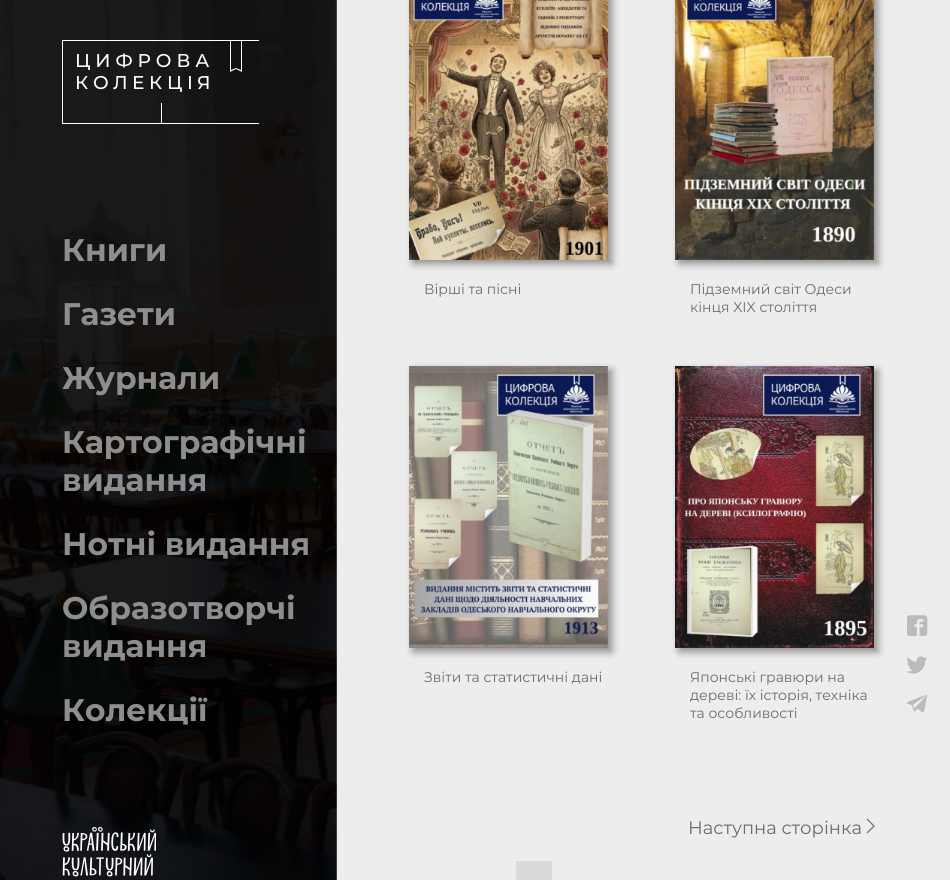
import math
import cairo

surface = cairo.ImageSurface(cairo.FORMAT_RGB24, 950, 880)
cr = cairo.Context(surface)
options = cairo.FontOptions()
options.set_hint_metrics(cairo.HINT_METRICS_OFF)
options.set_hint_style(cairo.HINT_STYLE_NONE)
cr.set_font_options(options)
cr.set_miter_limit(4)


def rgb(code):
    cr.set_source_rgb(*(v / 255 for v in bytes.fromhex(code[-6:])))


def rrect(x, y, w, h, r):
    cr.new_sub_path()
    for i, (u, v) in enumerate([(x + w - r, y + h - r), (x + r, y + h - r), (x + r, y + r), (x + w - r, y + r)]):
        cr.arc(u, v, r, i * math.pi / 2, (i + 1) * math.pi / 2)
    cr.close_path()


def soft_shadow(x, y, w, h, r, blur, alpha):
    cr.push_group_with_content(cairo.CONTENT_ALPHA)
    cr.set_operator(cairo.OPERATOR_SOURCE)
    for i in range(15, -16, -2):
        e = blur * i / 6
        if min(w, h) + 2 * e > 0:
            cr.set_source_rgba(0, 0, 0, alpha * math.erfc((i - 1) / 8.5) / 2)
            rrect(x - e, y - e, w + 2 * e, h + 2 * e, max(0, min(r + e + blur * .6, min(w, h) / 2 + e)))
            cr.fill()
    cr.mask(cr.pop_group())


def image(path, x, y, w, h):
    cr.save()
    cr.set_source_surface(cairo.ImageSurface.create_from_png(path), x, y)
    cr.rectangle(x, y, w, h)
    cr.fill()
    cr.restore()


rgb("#ededed")
cr.paint()
image("img/1.png", 0, 0, 337, 880)
cr.save()
cr.rectangle(62, 40, 197, 84)
cr.clip()
rgb("#ffffff")
cr.set_fill_rule(cairo.FILL_RULE_EVEN_ODD)
cr.new_path()
cr.move_to(90, 70)
cr.close_path()
cr.move_to(161, 103)
cr.line_to(162, 103)
cr.line_to(162, 123)
cr.line_to(259, 123)
cr.line_to(259, 41)
cr.line_to(242, 41)
cr.line_to(242, 72)
cr.line_to(236, 69)
cr.line_to(230, 72)
cr.line_to(230, 41)
cr.line_to(63, 41)
cr.line_to(63, 123)
cr.line_to(161, 123)
cr.close_path()
cr.move_to(241, 70)
cr.line_to(236, 68)
cr.line_to(231, 70)
cr.line_to(231, 41)
cr.line_to(241, 41)
cr.close_path()
cr.move_to(62, 40)
cr.line_to(62, 124)
cr.line_to(260, 124)
cr.line_to(260, 40)
cr.close_path()
cr.fill()
cr.restore()
image("img/2.png", 62, 827, 94, 50)
rgb("#000000")
soft_shadow(413, -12, 199, 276, 0, 4, 0.4)
image("img/3.png", 409, 0, 199, 260)
soft_shadow(679, -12, 199, 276, 0, 4, 0.4)
image("img/4.png", 675, 0, 199, 260)
soft_shadow(413, 370, 199, 282, 0, 4, 0.4)
image("img/5.png", 409, 366, 199, 282)
soft_shadow(679, 370, 199, 282, 0, 4, 0.4)
image("img/6.png", 675, 366, 199, 282)
image("img/7.png", 907, 615, 21, 21)
image("img/8.png", 907, 656, 20, 18)
image("img/9.png", 907, 694, 21, 19)
cr.new_path()
cr.move_to(867, 819)
cr.line_to(874, 826)
cr.line_to(867, 833)
rgb("#6c6c6c")
cr.set_line_width(1.2)
cr.stroke()
rgb("#dadada")
cr.rectangle(516, 861, 36, 19)
cr.fill()
cr.select_font_face("Montserrat Medium")
cr.set_font_size(18.5)
rgb("#ffffff")
for x, y, s in [
    (75, 67, "Ц И Ф Р О В А"),
    (75, 89, "К"),
    (93, 89, "О"),
    (113, 89, "Л"),
    (132, 89, "Е"),
    (149, 89, "К"),
    (167, 89, "Ц"),
    (187, 89, "І"),
    (197, 89, "Я"),
]:
    cr.move_to(x, y)
    cr.show_text(s)
cr.select_font_face("Montserrat", cairo.FONT_SLANT_NORMAL, cairo.FONT_WEIGHT_BOLD)
cr.set_font_size(31.25)
rgb("#8e8e8e")
for x, y, s in [
    (62, 261, "Книги"),
    (62, 325, "Газети"),
    (62, 389, "Журнали"),
    (62, 453, "Картографічні"),
    (62, 491, "видання"),
    (62, 555, "Нотні видання"),
    (62, 619, "Образотворчі"),
    (62, 657, "видання"),
    (62, 721, "Колекції"),
]:
    cr.move_to(x, y)
    cr.show_text(s)
cr.select_font_face("Montserrat")
cr.set_font_size(14)
rgb("#6c6c6c")
for x, y, s in [
    (424, 294, "Вірші та пісні"),
    (690, 294, "Підземний світ Одеси"),
    (690, 312, "кінця XIX століття"),
    (424, 682, "Звіти та статистичні дані"),
    (690, 682, "Японські гравюри на"),
    (690, 700, "дереві: їх історія, техніка"),
    (690, 718, "та особливості"),
]:
    cr.move_to(x, y)
    cr.show_text(s)
cr.set_font_size(18)
cr.move_to(688, 834)
cr.show_text("Наступна сторінка")
surface.write_to_png("page.png")
